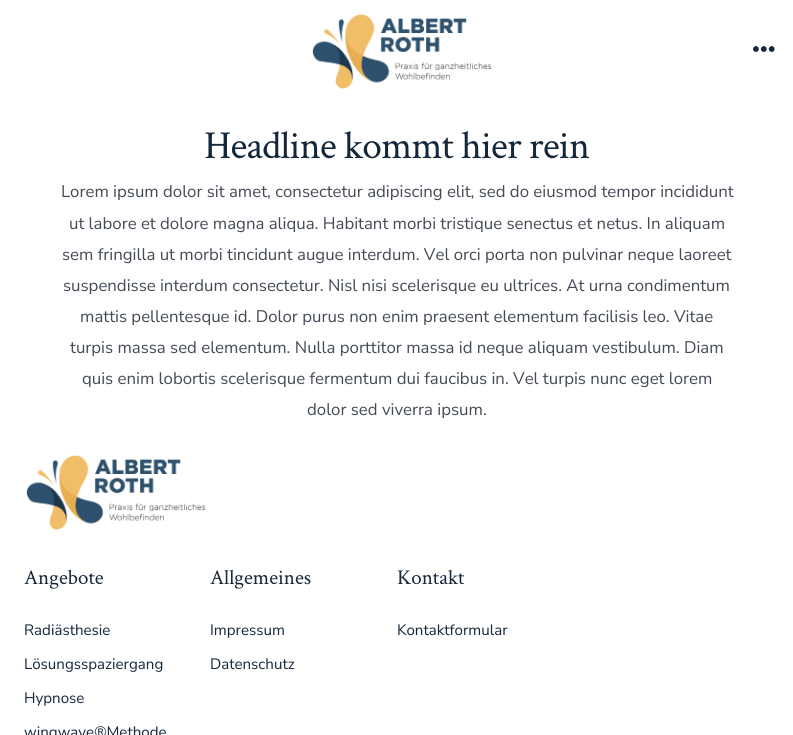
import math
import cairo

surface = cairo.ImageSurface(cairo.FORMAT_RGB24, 793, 735)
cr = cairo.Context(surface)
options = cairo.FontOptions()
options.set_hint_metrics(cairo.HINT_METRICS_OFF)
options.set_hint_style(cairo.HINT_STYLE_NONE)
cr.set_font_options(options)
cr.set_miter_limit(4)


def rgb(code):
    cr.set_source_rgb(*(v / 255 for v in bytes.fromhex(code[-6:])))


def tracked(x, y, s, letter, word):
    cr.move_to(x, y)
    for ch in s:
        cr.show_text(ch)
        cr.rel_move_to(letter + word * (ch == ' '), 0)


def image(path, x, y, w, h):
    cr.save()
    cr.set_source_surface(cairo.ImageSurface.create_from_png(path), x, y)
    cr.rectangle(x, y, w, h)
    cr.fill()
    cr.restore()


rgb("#ffffff")
cr.paint()
image("img/1.png", 312, 14, 180, 76)
image("img/2.png", 753, 46, 22, 6)
image("img/3.png", 26, 455, 180, 76)
cr.select_font_face("Crimson Text")
cr.set_font_size(39.6)
rgb("#13263a")
tracked(204, 158, "Headline kommt hier rein", -0.75, 0)
cr.select_font_face("Nunito Sans")
cr.set_font_size(16.8)
rgb("#434a56")
for x, y, s in [
    (61, 197, "Lorem ipsum dolor sit amet, consectetur adipiscing elit, sed do eiusmod tempor incididunt"),
    (69, 229, "ut labore et dolore magna aliqua. Habitant morbi tristique senectus et netus. In aliquam"),
    (62, 260, "sem fringilla ut morbi tincidunt augue interdum. Vel orci porta non pulvinar neque laoreet"),
    (63, 291, "suspendisse interdum consectetur. Nisl nisi scelerisque eu ultrices. At urna condimentum"),
    (80, 322, "mattis pellentesque id. Dolor purus non enim praesent elementum facilisis leo. Vitae"),
    (70, 353, "turpis massa sed elementum. Nulla porttitor massa id neque aliquam vestibulum. Diam"),
    (82, 384, "quis enim lobortis scelerisque fermentum dui faucibus in. Vel turpis nunc eget lorem"),
    (307, 415, "dolor sed viverra ipsum."),
]:
    cr.move_to(x, y)
    cr.show_text(s)
cr.select_font_face("Crimson Text")
cr.set_font_size(21)
rgb("#13263a")
cr.move_to(24, 584)
cr.show_text("Angebote")
cr.select_font_face("Nunito Sans")
cr.set_font_size(15.1)
for x, y, s in [
    (24, 635, "Radiästhesie"),
    (24, 669, "Lösungsspaziergang"),
    (24, 703, "Hypnose"),
    (24, 737, "wingwave®Methode"),
]:
    cr.move_to(x, y)
    cr.show_text(s)
cr.select_font_face("Crimson Text")
cr.set_font_size(21)
cr.move_to(210, 584)
cr.show_text("Allgemeines")
cr.select_font_face("Nunito Sans")
cr.set_font_size(15.1)
cr.move_to(210, 635)
cr.show_text("Impressum")
cr.move_to(210, 669)
cr.show_text("Datenschutz")
cr.select_font_face("Crimson Text")
cr.set_font_size(21)
cr.move_to(397, 584)
cr.show_text("Kontakt")
cr.select_font_face("Nunito Sans")
cr.set_font_size(15.1)
cr.move_to(397, 635)
cr.show_text("Kontaktformular")
surface.write_to_png("page.png")
